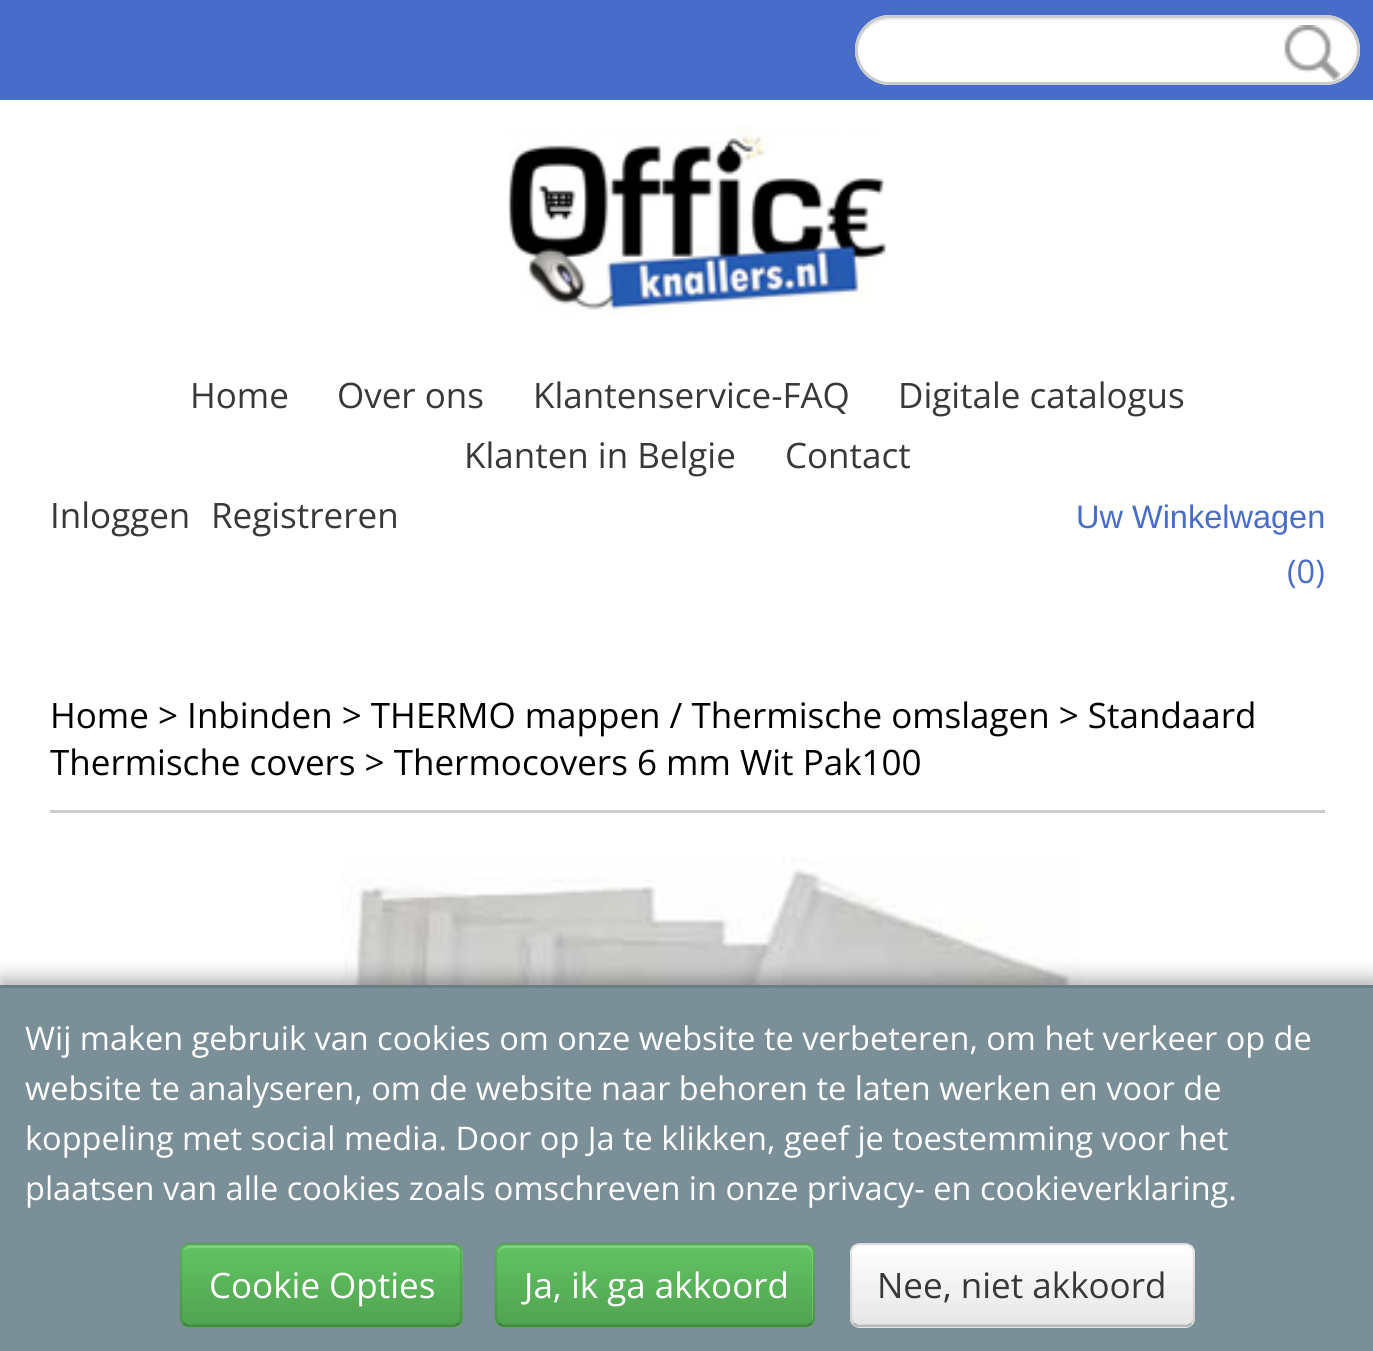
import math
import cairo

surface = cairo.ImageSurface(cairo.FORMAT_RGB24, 1373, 1351)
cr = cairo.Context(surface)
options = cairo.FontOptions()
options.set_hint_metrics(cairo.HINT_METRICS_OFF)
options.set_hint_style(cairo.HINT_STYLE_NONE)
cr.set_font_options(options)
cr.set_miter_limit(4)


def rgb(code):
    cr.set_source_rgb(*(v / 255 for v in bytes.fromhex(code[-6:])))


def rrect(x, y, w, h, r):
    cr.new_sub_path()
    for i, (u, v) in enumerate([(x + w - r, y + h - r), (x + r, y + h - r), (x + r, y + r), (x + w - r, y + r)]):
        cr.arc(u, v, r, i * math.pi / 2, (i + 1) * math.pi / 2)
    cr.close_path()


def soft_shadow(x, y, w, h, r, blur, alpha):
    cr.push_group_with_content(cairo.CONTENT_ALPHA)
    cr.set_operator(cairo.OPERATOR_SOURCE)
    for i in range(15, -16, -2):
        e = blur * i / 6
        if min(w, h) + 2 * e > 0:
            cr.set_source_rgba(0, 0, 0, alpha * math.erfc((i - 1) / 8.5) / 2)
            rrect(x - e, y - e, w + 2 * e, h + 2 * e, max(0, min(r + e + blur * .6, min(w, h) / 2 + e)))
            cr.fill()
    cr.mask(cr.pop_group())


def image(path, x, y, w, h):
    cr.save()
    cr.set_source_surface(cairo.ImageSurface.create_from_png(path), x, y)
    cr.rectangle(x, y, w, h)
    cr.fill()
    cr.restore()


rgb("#ffffff")
cr.paint()
rgb("#486cc9")
cr.rectangle(0, 0, 1373, 100)
cr.fill()
rgb("#ffffff")
rrect(855, 15, 505, 70, 35)
cr.fill()
rgb("#ececec")
cr.new_path()
cr.move_to(890, 20)
cr.line_to(1325, 20)
cr.curve_to(1343, 20, 1358, 35, 1358, 51)
cr.curve_to(1358, 33, 1344, 18, 1326, 18)
cr.line_to(890, 18)
cr.curve_to(872, 18, 858, 33, 858, 51)
cr.curve_to(858, 35, 872, 20, 890, 20)
cr.close_path()
cr.fill()
rrect(856.5, 16.5, 502, 67, 33.5)
rgb("#cccccc")
cr.set_line_width(3)
cr.stroke()
image("img/1.png", 1284, 25, 56, 55)
image("img/2.png", 507, 125, 379, 191)
cr.rectangle(50, 810, 1275, 3)
cr.fill()
image("img/3.png", 342, 857, 740, 128)
rgb("#000000")
soft_shadow(0, 978, 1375, 367, 0, 9, 0.3)
rgb("#7a8f98")
cr.rectangle(0, 988, 1373, 363)
cr.fill()
rgb("#697e87")
cr.rectangle(0, 985, 1373, 3)
cr.fill()
rgb("#5bb75b")
rrect(180, 1243, 283, 85, 10)
cr.fill()
cr.save()
rrect(180, 1243, 283, 85, 10)
cr.clip()
gradient = cairo.LinearGradient(321, 1245, 321, 1325)
gradient.add_color_stop_rgba(0, 0.384, 0.769, 0.384, 1)
gradient.add_color_stop_rgba(1, 0.318, 0.639, 0.318, 1)
cr.set_source(gradient)
cr.rectangle(180, 1245, 283, 80)
cr.fill()
cr.restore()
cr.set_source_rgba(1, 1, 1, 0.2)
cr.new_path()
cr.move_to(190, 1248)
cr.line_to(452, 1248)
cr.curve_to(457, 1248, 460, 1251, 460, 1255)
cr.line_to(460, 1253)
cr.curve_to(460, 1249, 456, 1245, 452, 1245)
cr.line_to(191, 1245)
cr.curve_to(187, 1245, 184, 1248, 183, 1251)
cr.curve_to(185, 1249, 187, 1248, 190, 1248)
cr.close_path()
cr.fill()
cr.new_path()
cr.move_to(458.5, 1323.5)
cr.curve_to(457, 1325.5, 455, 1326, 452.5, 1326)
cr.line_to(190, 1326)
cr.curve_to(187.5, 1326, 185.5, 1325.5, 184, 1323.5)
cr.set_source_rgba(0, 0, 0, 0.25)
cr.set_line_width(2.5)
cr.stroke()
cr.new_path()
cr.move_to(184, 1323.5)
cr.curve_to(182, 1322, 181, 1320, 181, 1317.5)
cr.line_to(181, 1252.5)
cr.curve_to(181, 1250, 182, 1248, 184, 1246.5)
cr.curve_to(185.5, 1244.5, 187.5, 1244, 190, 1244)
cr.line_to(452.5, 1244)
cr.curve_to(455, 1244, 457, 1244.5, 458.5, 1246.5)
cr.curve_to(460.5, 1248, 461, 1250, 461, 1252.5)
cr.line_to(461, 1317.5)
cr.curve_to(461, 1320, 460.5, 1322, 458.5, 1323.5)
cr.set_source_rgba(0, 0, 0, 0.1)
cr.stroke()
rgb("#5bb75b")
rrect(495, 1243, 320, 85, 10)
cr.fill()
cr.save()
rrect(495, 1243, 320, 85, 10)
cr.clip()
gradient = cairo.LinearGradient(655, 1245, 655, 1325)
gradient.add_color_stop_rgba(0, 0.384, 0.769, 0.384, 1)
gradient.add_color_stop_rgba(1, 0.318, 0.639, 0.318, 1)
cr.set_source(gradient)
cr.rectangle(495, 1245, 320, 80)
cr.fill()
cr.restore()
cr.set_source_rgba(1, 1, 1, 0.2)
cr.new_path()
cr.move_to(505, 1248)
cr.line_to(805, 1248)
cr.curve_to(809, 1248, 812, 1251, 812, 1255)
cr.line_to(812, 1321)
cr.curve_to(813, 1320, 813, 1318, 813, 1317)
cr.line_to(813, 1253)
cr.curve_to(813, 1249, 809, 1245, 805, 1245)
cr.line_to(506, 1245)
cr.curve_to(502, 1245, 498, 1249, 498, 1253)
cr.line_to(498, 1255)
cr.curve_to(498, 1251, 501, 1248, 505, 1248)
cr.close_path()
cr.fill()
cr.new_path()
cr.move_to(811, 1323.5)
cr.curve_to(809.5, 1325.5, 807.5, 1326, 805, 1326)
cr.line_to(505, 1326)
cr.curve_to(502.5, 1326, 500.5, 1325.5, 499, 1323.5)
cr.set_source_rgba(0, 0, 0, 0.25)
cr.stroke()
cr.new_path()
cr.move_to(499, 1323.5)
cr.curve_to(497, 1322, 496, 1320, 496, 1317.5)
cr.line_to(496, 1252.5)
cr.curve_to(496, 1250, 497, 1248, 499, 1246.5)
cr.curve_to(500.5, 1244.5, 502.5, 1244, 505, 1244)
cr.line_to(805, 1244)
cr.curve_to(807.5, 1244, 809.5, 1244.5, 811, 1246.5)
cr.curve_to(813, 1248, 814, 1250, 814, 1252.5)
cr.line_to(814, 1317.5)
cr.curve_to(814, 1320, 813, 1322, 811, 1323.5)
cr.set_source_rgba(0, 0, 0, 0.1)
cr.stroke()
rgb("#f5f5f5")
rrect(850, 1243, 345, 85, 10)
cr.fill()
cr.save()
rrect(850, 1243, 345, 85, 10)
cr.clip()
gradient = cairo.LinearGradient(1023, 1245, 1023, 1325)
gradient.add_color_stop_rgba(0, 1, 1, 1, 1)
gradient.add_color_stop_rgba(1, 0.902, 0.902, 0.902, 1)
cr.set_source(gradient)
cr.rectangle(850, 1245, 345, 80)
cr.fill()
cr.restore()
cr.set_source_rgba(1, 1, 1, 0.2)
cr.new_path()
cr.move_to(860, 1248)
cr.line_to(1185, 1248)
cr.curve_to(1189, 1248, 1192, 1251, 1192, 1255)
cr.line_to(1192, 1321)
cr.curve_to(1193, 1320, 1193, 1318, 1193, 1317)
cr.line_to(1193, 1253)
cr.curve_to(1193, 1249, 1189, 1245, 1185, 1245)
cr.line_to(861, 1245)
cr.curve_to(857, 1245, 854, 1248, 853, 1251)
cr.curve_to(855, 1249, 857, 1248, 860, 1248)
cr.close_path()
cr.fill()
cr.new_path()
cr.move_to(1191, 1323.5)
cr.curve_to(1189.5, 1325.5, 1187.5, 1326, 1185, 1326)
cr.line_to(860, 1326)
cr.curve_to(857.5, 1326, 855.5, 1325.5, 854, 1323.5)
cr.set_source_rgba(0, 0, 0, 0.25)
cr.stroke()
cr.new_path()
cr.move_to(854, 1323.5)
cr.curve_to(852, 1322, 851, 1320, 851, 1317.5)
cr.line_to(851, 1252.5)
cr.curve_to(851, 1250, 852, 1248, 854, 1246.5)
cr.curve_to(855.5, 1244.5, 857.5, 1244, 860, 1244)
cr.line_to(1185, 1244)
cr.curve_to(1187.5, 1244, 1189.5, 1244.5, 1191, 1246.5)
cr.curve_to(1193, 1248, 1194, 1250, 1194, 1252.5)
cr.line_to(1194, 1317.5)
cr.curve_to(1194, 1320, 1193, 1322, 1191, 1323.5)
cr.set_source_rgba(0, 0, 0, 0.1)
cr.stroke()
cr.select_font_face("Open Sans")
cr.set_font_size(35)
rgb("#383838")
for x, y, s in [
    (190, 408, "Home"),
    (337, 408, "Over ons"),
    (533, 408, "Klantenservice-FAQ"),
    (898, 408, "Digitale catalogus"),
    (464, 468, "Klanten in Belgie"),
    (785, 468, "Contact"),
    (50, 528, "Inloggen"),
    (211, 528, "Registreren"),
]:
    cr.move_to(x, y)
    cr.show_text(s)
cr.select_font_face("Liberation Sans")
cr.set_font_size(32.5)
rgb("#486cc9")
cr.move_to(1076, 528)
cr.show_text("Uw Winkelwagen")
cr.select_font_face("Open Sans")
cr.move_to(1287, 583)
cr.show_text("(0)")
cr.set_font_size(35)
rgb("#000000")
cr.move_to(50, 728)
cr.show_text("Home > Inbinden > THERMO mappen / Thermische omslagen > Standaard")
cr.move_to(50, 775)
cr.show_text("Thermische covers > Thermocovers 6 mm Wit Pak100")
cr.set_font_size(32.5)
rgb("#ffffff")
for x, y, s in [
    (25, 1050, "Wij maken gebruik van cookies om onze website te verbeteren, om het verkeer op de"),
    (25, 1100, "website te analyseren, om de website naar behoren te laten werken en voor de"),
    (25, 1150, "koppeling met social media. Door op Ja te klikken, geef je toestemming voor het"),
    (25, 1200, "plaatsen van alle cookies zoals omschreven in onze privacy- en cookieverklaring."),
]:
    cr.move_to(x, y)
    cr.show_text(s)
cr.set_font_size(35)
cr.move_to(209, 1298)
cr.show_text("Cookie Opties")
cr.move_to(524, 1298)
cr.show_text("Ja, ik ga akkoord")
rgb("#383838")
cr.move_to(877, 1298)
cr.show_text("Nee, niet akkoord")
surface.write_to_png("page.png")
